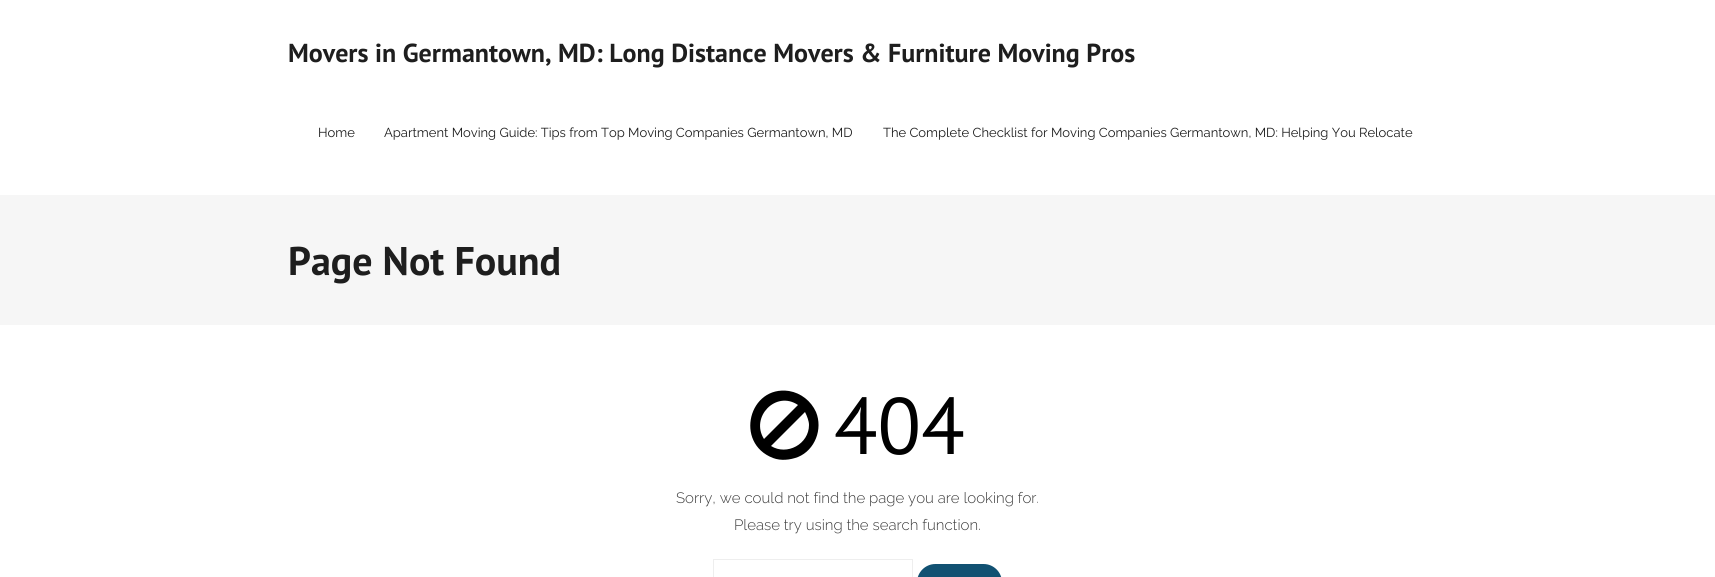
import math
import cairo

surface = cairo.ImageSurface(cairo.FORMAT_RGB24, 1715, 577)
cr = cairo.Context(surface)
options = cairo.FontOptions()
options.set_hint_metrics(cairo.HINT_METRICS_OFF)
options.set_hint_style(cairo.HINT_STYLE_NONE)
cr.set_font_options(options)
cr.set_miter_limit(4)


def rgb(code):
    cr.set_source_rgb(*(v / 255 for v in bytes.fromhex(code[-6:])))


def rrect(x, y, w, h, r):
    cr.new_sub_path()
    for i, (u, v) in enumerate([(x + w - r, y + h - r), (x + r, y + h - r), (x + r, y + r), (x + w - r, y + r)]):
        cr.arc(u, v, r, i * math.pi / 2, (i + 1) * math.pi / 2)
    cr.close_path()


rgb("#ffffff")
cr.paint()
rgb("#f6f6f6")
cr.rectangle(0, 195, 1715, 130)
cr.fill()
rgb("#000000")
cr.new_path()
cr.move_to(809, 425)
cr.curve_to(809, 421, 807, 416, 805, 412)
cr.line_to(771, 446)
cr.curve_to(787, 456, 809, 444, 809, 425)
cr.close_path()
cr.move_to(764, 439)
cr.line_to(798, 405)
cr.curve_to(776, 390, 750, 417, 764, 439)
cr.close_path()
cr.move_to(816, 412)
cr.curve_to(823, 429, 815, 450, 798, 457)
cr.curve_to(790, 460, 781, 461, 773, 458)
cr.curve_to(734, 443, 749, 385, 789, 391)
cr.curve_to(801, 393, 811, 401, 816, 412)
cr.close_path()
cr.fill()
cr.rectangle(713.5, 559.5, 199, 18)
rgb("#eeeeee")
cr.set_line_width(1)
cr.stroke()
rgb("#115172")
rrect(917, 564, 85, 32, 18.5)
cr.fill()
cr.select_font_face("PT Sans", cairo.FONT_SLANT_NORMAL, cairo.FONT_WEIGHT_BOLD)
cr.set_font_size(26)
rgb("#1e1e1e")
cr.move_to(288, 62)
cr.show_text("Movers in Germantown, MD: Long Distance Movers & Furniture Moving Pros")
cr.select_font_face("Raleway")
cr.set_font_size(13)
for x, y, s in [
    (318, 137, "Home"),
    (384, 137, "Apartment Moving Guide: Tips from Top Moving Companies Germantown, MD"),
    (883, 137, "The Complete Checklist for Moving Companies Germantown, MD: Helping You Relocate"),
]:
    cr.move_to(x, y)
    cr.show_text(s)
cr.select_font_face("PT Sans", cairo.FONT_SLANT_NORMAL, cairo.FONT_WEIGHT_BOLD)
cr.set_font_size(40)
cr.move_to(288, 275)
cr.show_text("Page Not Found")
cr.select_font_face("PT Sans")
cr.set_font_size(80)
rgb("#000000")
cr.move_to(834, 454)
cr.show_text("404")
cr.select_font_face("Raleway Light")
cr.set_font_size(15)
rgb("#3d3d3d")
cr.move_to(676, 503)
cr.show_text("Sorry, we could not find the page you are looking for.")
cr.move_to(734, 530)
cr.show_text("Please try using the search function.")
surface.write_to_png("page.png")
